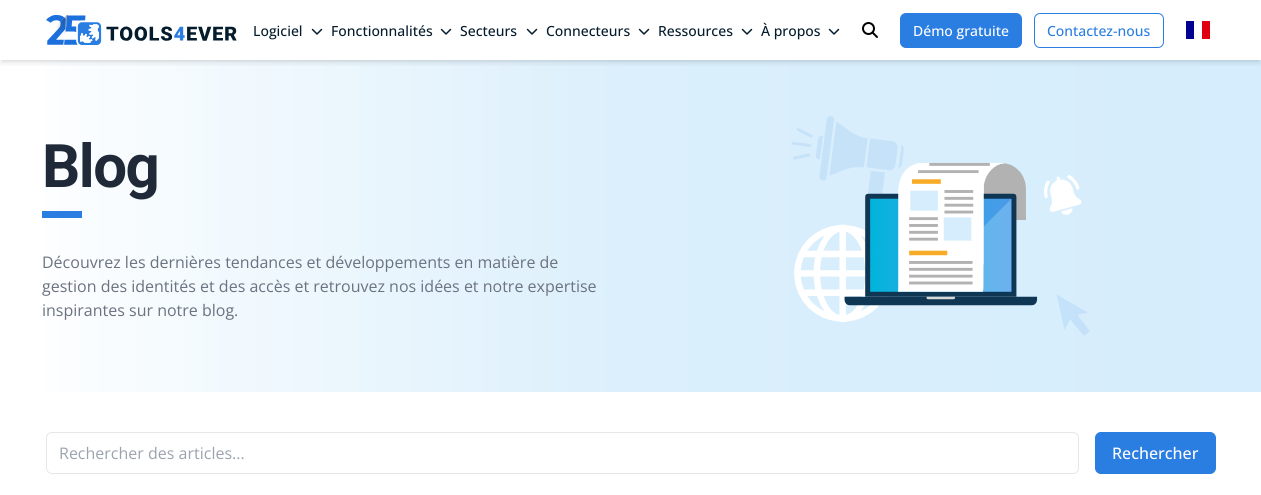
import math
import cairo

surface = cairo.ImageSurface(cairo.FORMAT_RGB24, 1261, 495)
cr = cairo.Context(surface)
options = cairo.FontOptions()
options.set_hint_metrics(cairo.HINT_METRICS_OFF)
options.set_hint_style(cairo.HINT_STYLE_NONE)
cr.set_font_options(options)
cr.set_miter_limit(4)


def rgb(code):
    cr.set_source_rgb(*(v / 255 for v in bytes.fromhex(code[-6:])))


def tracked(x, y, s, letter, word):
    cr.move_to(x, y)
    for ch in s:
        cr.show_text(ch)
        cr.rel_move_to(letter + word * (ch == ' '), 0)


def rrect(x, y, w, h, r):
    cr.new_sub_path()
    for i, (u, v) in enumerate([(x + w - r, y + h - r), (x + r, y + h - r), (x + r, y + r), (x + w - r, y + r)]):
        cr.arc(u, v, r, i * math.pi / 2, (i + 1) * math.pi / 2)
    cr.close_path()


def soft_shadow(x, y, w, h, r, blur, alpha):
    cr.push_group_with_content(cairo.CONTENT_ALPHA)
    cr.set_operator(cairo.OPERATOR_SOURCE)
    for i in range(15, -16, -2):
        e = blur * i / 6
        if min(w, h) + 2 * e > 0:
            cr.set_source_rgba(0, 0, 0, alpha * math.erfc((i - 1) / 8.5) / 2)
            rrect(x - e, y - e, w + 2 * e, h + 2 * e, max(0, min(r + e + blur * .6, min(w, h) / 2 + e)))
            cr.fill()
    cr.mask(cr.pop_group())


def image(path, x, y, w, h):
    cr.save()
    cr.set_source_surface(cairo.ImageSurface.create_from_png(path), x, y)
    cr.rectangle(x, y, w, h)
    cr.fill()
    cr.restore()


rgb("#ffffff")
cr.paint()
gradient = cairo.LinearGradient(0, 226, 1261, 226)
gradient.add_color_stop_rgba(0, 1, 1, 1, 1)
gradient.add_color_stop_rgba(0.5, 0.859, 0.937, 0.988, 1)
gradient.add_color_stop_rgba(1, 0.835, 0.929, 0.988, 1)
cr.set_source(gradient)
cr.rectangle(44, 60, 1217, 332)
cr.fill()
cr.save()
cr.rectangle(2, 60, 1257, 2)
cr.clip()
rgb("#000000")
soft_shadow(2, 4, 1257, 56, 0, 2, 0.1)
cr.restore()
cr.save()
cr.rectangle(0, 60, 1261, 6)
cr.clip()
rgb("#000000")
soft_shadow(1, 5, 1259, 58, 0, 3, 0.1)
cr.restore()
image("img/1.png", 46, 15, 191, 30)
image("img/2.png", 311, 28, 12, 7)
image("img/2.png", 440, 28, 12, 7)
image("img/2.png", 526, 28, 12, 7)
image("img/2.png", 638, 28, 12, 7)
image("img/2.png", 741, 28, 12, 7)
image("img/2.png", 828, 28, 12, 7)
image("img/3.png", 862, 22, 16, 16)
rgb("#2a7de1")
rrect(900.5, 13.5, 121, 34, 5.5)
cr.fill_preserve()
cr.set_line_width(1)
cr.stroke()
rrect(1034.5, 13.5, 129, 34, 5.5)
cr.stroke()
for x, y, w, h, color in [
    (1186, 21, 8, 18, "#000091"),
    (1202, 21, 8, 18, "#e1000f"),
    (42, 211, 40, 7, "#2a7de1"),
]:
    rgb(color)
    cr.rectangle(x, y, w, h)
    cr.fill()
image("img/4.png", 792, 116, 298, 220)
rrect(46.5, 432.5, 1032, 41, 5.5)
rgb("#e5e7eb")
cr.stroke()
rgb("#2a7de1")
rrect(1095.5, 432.5, 120, 41, 5.5)
cr.fill_preserve()
cr.stroke()
cr.select_font_face("Open Sans Medium")
cr.set_font_size(14)
rgb("#051c2c")
for x, y, s in [
    (253, 36, "Logiciel"),
    (331, 36, "Fonctionnalités"),
    (460, 36, "Secteurs"),
    (546, 36, "Connecteurs"),
    (658, 36, "Ressources"),
    (761, 36, "À propos"),
]:
    cr.move_to(x, y)
    cr.show_text(s)
rgb("#ffffff")
cr.move_to(913, 36)
cr.show_text("Démo gratuite")
rgb("#2a7de1")
cr.move_to(1047, 36)
cr.show_text("Contactez-nous")
cr.select_font_face("Roboto", cairo.FONT_SLANT_NORMAL, cairo.FONT_WEIGHT_BOLD)
cr.set_font_size(60)
rgb("#1f2937")
tracked(42, 187, "Blog", -1.5, 0)
cr.select_font_face("Open Sans")
cr.set_font_size(16)
rgb("#6b7280")
for x, y, s in [
    (42, 268, "Découvrez les dernières tendances et développements en matière de"),
    (42, 292, "gestion des identités et des accès et retrouvez nos idées et notre expertise"),
    (42, 316, "inspirantes sur notre blog."),
]:
    cr.move_to(x, y)
    cr.show_text(s)
rgb("#9ca3af")
cr.move_to(59, 459)
cr.show_text("Rechercher des articles...")
cr.select_font_face("Open Sans Medium")
rgb("#ffffff")
cr.move_to(1112, 459)
cr.show_text("Rechercher")
surface.write_to_png("page.png")
